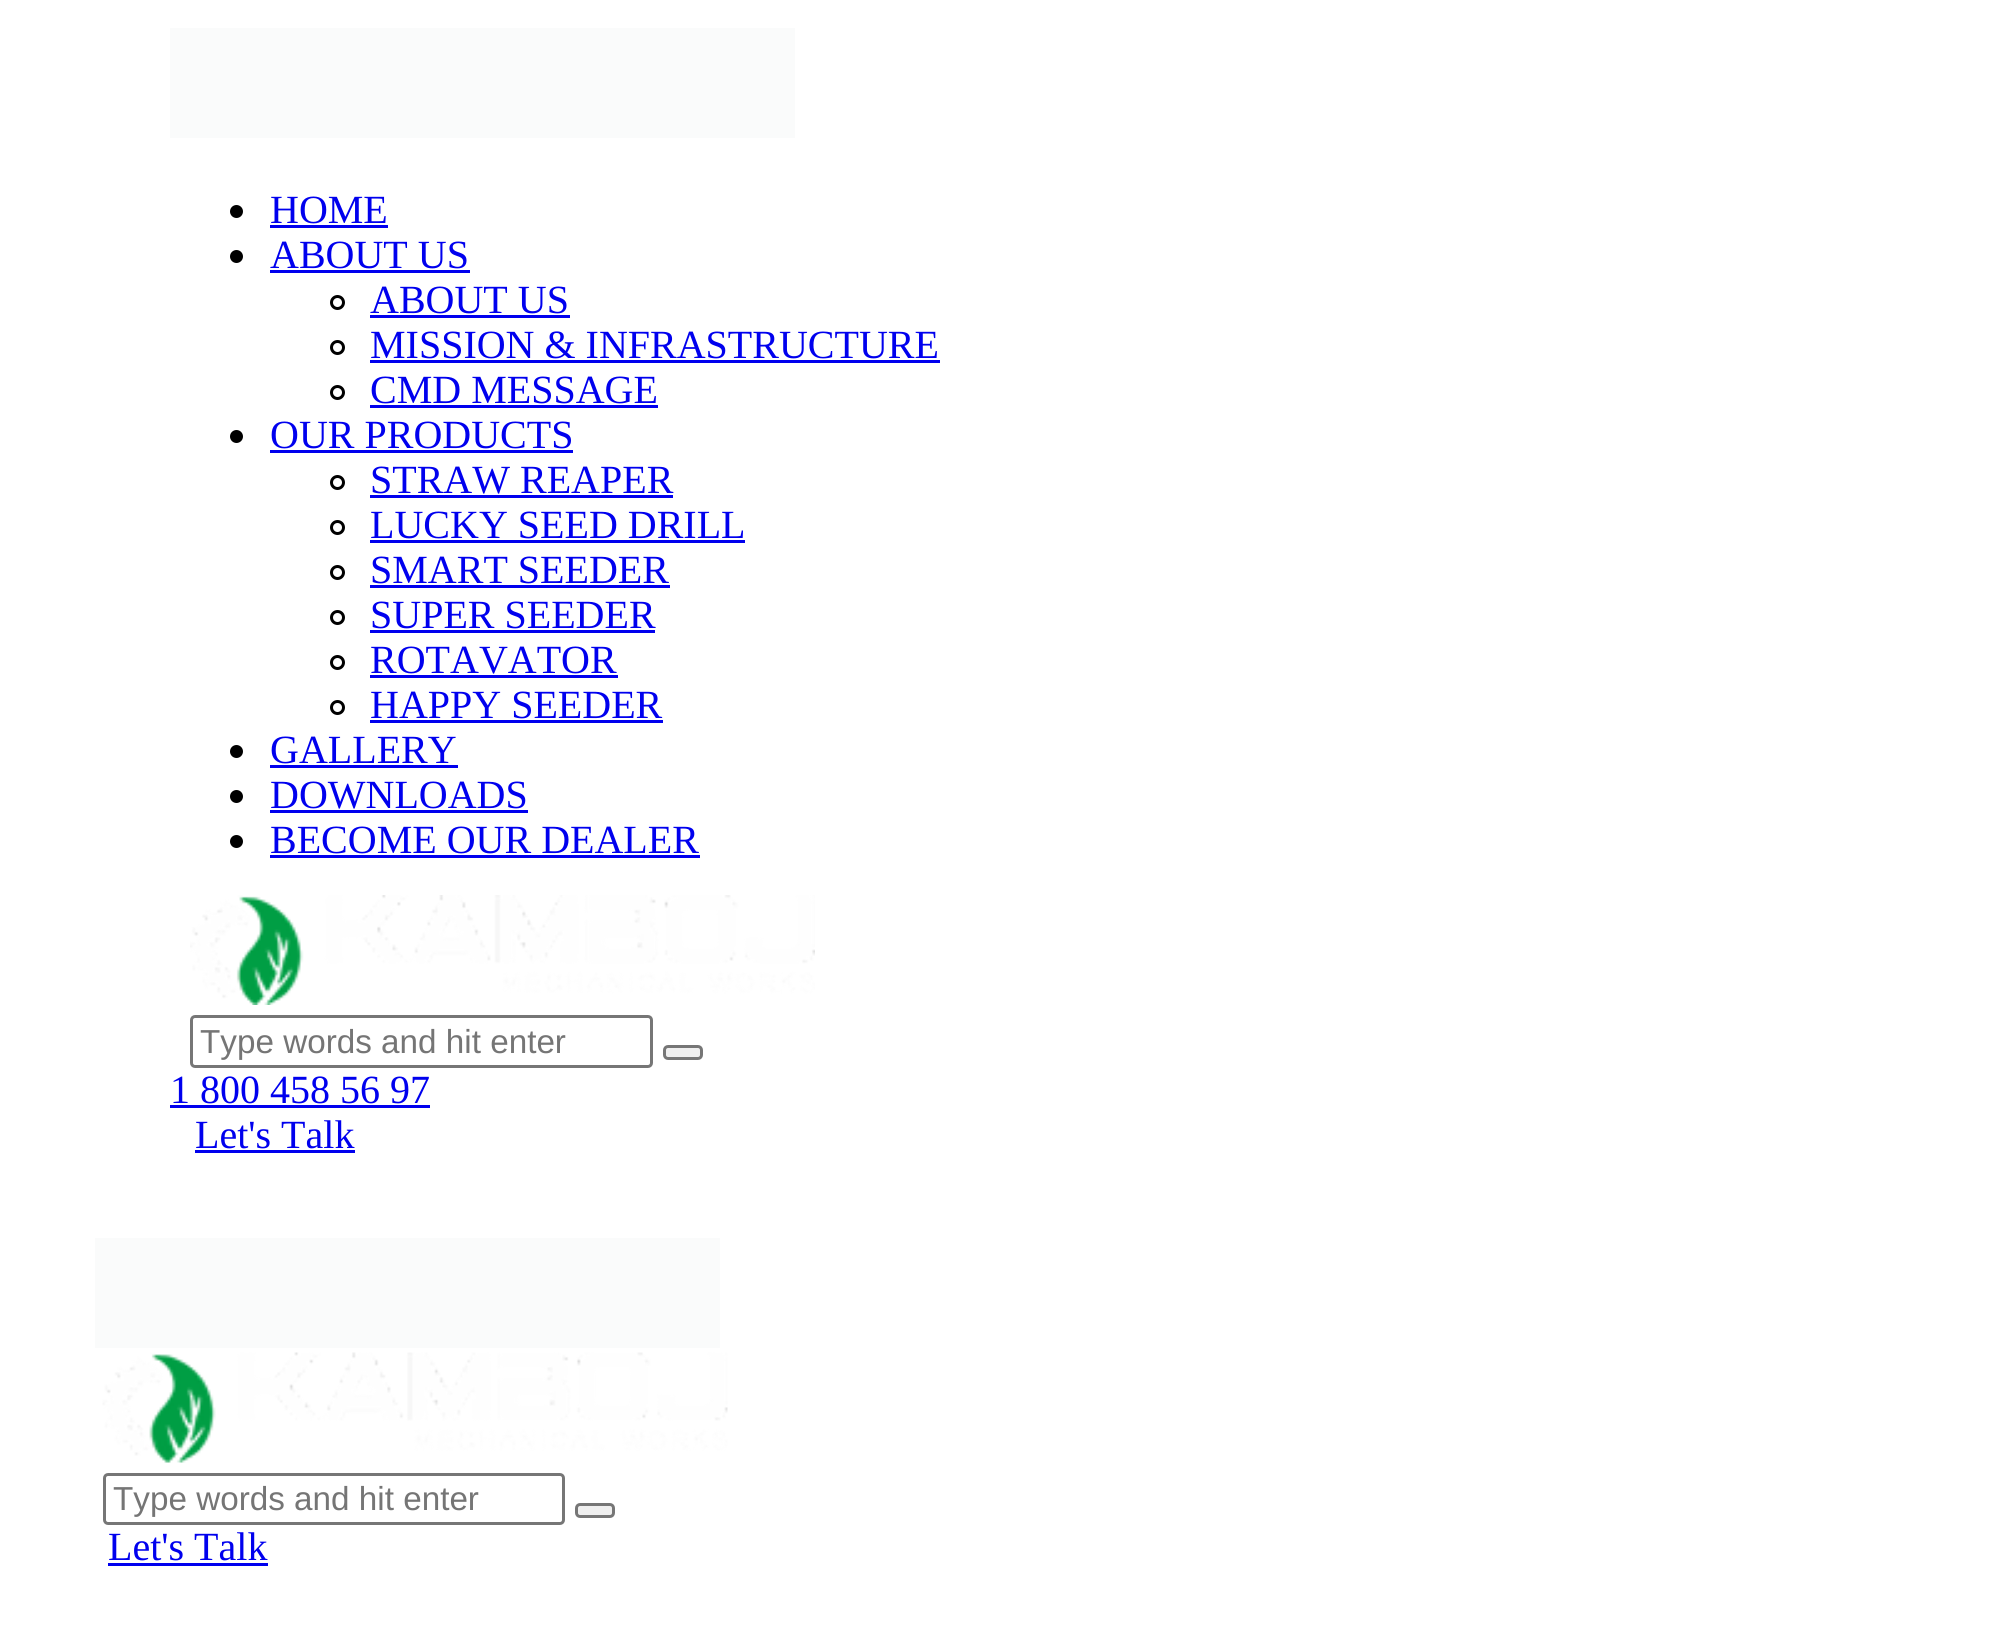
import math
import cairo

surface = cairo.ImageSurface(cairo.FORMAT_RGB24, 2013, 1632)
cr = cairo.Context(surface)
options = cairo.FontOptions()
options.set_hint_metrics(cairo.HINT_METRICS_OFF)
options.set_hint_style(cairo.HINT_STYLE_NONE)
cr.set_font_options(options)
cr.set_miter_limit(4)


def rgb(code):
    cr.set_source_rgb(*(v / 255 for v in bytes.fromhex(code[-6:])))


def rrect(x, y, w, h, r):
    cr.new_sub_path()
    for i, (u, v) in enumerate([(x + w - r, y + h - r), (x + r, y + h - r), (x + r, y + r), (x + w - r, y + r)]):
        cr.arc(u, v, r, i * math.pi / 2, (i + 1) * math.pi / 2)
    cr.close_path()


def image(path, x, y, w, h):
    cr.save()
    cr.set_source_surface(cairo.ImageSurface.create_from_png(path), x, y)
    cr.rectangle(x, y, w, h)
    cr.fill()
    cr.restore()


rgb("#ffffff")
cr.paint()
rgb("#fafbfb")
cr.rectangle(170, 28, 625, 110)
cr.fill()
rgb("#000000")
cr.arc(236.5, 211.5, 6.5, 0, 2 * math.pi)
cr.fill()
rgb("#0000ee")
cr.rectangle(270, 225, 118, 3)
cr.fill()
rgb("#000000")
cr.arc(236.5, 256.5, 6.5, 0, 2 * math.pi)
cr.fill()
rgb("#0000ee")
cr.rectangle(270, 270, 200, 3)
cr.fill()
cr.arc(337.5, 302.5, 6, 0, 2 * math.pi)
rgb("#000000")
cr.set_line_width(3)
cr.stroke()
rgb("#0000ee")
cr.rectangle(370, 315, 200, 3)
cr.fill()
cr.arc(337.5, 347.5, 6, 0, 2 * math.pi)
rgb("#000000")
cr.stroke()
rgb("#0000ee")
cr.rectangle(370, 360, 570, 3)
cr.fill()
cr.arc(337.5, 392.5, 6, 0, 2 * math.pi)
rgb("#000000")
cr.stroke()
rgb("#0000ee")
cr.rectangle(370, 405, 288, 3)
cr.fill()
rgb("#000000")
cr.arc(236.5, 436.5, 6.5, 0, 2 * math.pi)
cr.fill()
rgb("#0000ee")
cr.rectangle(270, 450, 303, 3)
cr.fill()
cr.arc(337.5, 482.5, 6, 0, 2 * math.pi)
rgb("#000000")
cr.stroke()
rgb("#0000ee")
cr.rectangle(370, 495, 303, 3)
cr.fill()
cr.arc(337.5, 527.5, 6, 0, 2 * math.pi)
rgb("#000000")
cr.stroke()
rgb("#0000ee")
cr.rectangle(370, 540, 375, 3)
cr.fill()
cr.arc(337.5, 572.5, 6, 0, 2 * math.pi)
rgb("#000000")
cr.stroke()
rgb("#0000ee")
cr.rectangle(370, 585, 300, 3)
cr.fill()
cr.arc(337.5, 617.5, 6, 0, 2 * math.pi)
rgb("#000000")
cr.stroke()
rgb("#0000ee")
cr.rectangle(370, 630, 285, 3)
cr.fill()
cr.arc(337.5, 662.5, 6, 0, 2 * math.pi)
rgb("#000000")
cr.stroke()
rgb("#0000ee")
cr.rectangle(370, 675, 248, 3)
cr.fill()
cr.arc(337.5, 707.5, 6, 0, 2 * math.pi)
rgb("#000000")
cr.stroke()
rgb("#0000ee")
cr.rectangle(370, 720, 293, 3)
cr.fill()
rgb("#000000")
cr.arc(236.5, 751.5, 6.5, 0, 2 * math.pi)
cr.fill()
rgb("#0000ee")
cr.rectangle(270, 765, 188, 3)
cr.fill()
rgb("#000000")
cr.arc(236.5, 796.5, 6.5, 0, 2 * math.pi)
cr.fill()
rgb("#0000ee")
cr.rectangle(270, 810, 258, 3)
cr.fill()
rgb("#000000")
cr.arc(236.5, 841.5, 6.5, 0, 2 * math.pi)
cr.fill()
rgb("#0000ee")
cr.rectangle(270, 855, 430, 3)
cr.fill()
image("img/1.png", 190, 895, 625, 110)
rrect(191.5, 1016.5, 460, 50, 3.5)
rgb("#767676")
cr.stroke()
rgb("#efefef")
rrect(664.5, 1046.5, 37, 12, 3.5)
cr.fill_preserve()
rgb("#767676")
cr.stroke()
for x, y, w, h, color in [
    (170, 1105, 260, 3, "#0000ee"),
    (195, 1150, 160, 3, "#0000ee"),
    (95, 1238, 625, 110, "#fafbfb"),
]:
    rgb(color)
    cr.rectangle(x, y, w, h)
    cr.fill()
image("img/2.png", 102, 1352, 626, 111)
rrect(104.5, 1474.5, 459, 49, 3.5)
rgb("#767676")
cr.stroke()
rgb("#efefef")
rrect(576.5, 1504.5, 37, 12, 3.5)
cr.fill_preserve()
rgb("#767676")
cr.stroke()
rgb("#0000ee")
cr.rectangle(108, 1563, 160, 3)
cr.fill()
cr.select_font_face("Liberation Serif")
cr.set_font_size(40)
for x, y, s in [
    (270, 223, "HOME"),
    (270, 268, "ABOUT US"),
    (370, 313, "ABOUT US"),
    (370, 358, "MISSION & INFRASTRUCTURE"),
    (370, 403, "CMD MESSAGE"),
    (270, 448, "OUR PRODUCTS"),
    (370, 493, "STRAW REAPER"),
    (370, 538, "LUCKY SEED DRILL"),
    (370, 583, "SMART SEEDER"),
    (370, 628, "SUPER SEEDER"),
    (370, 673, "ROTAVATOR"),
    (370, 718, "HAPPY SEEDER"),
    (270, 763, "GALLERY"),
    (270, 808, "DOWNLOADS"),
    (270, 853, "BECOME OUR DEALER"),
]:
    cr.move_to(x, y)
    cr.show_text(s)
cr.select_font_face("Liberation Sans")
cr.set_font_size(33.25)
rgb("#757575")
cr.move_to(200, 1053)
cr.show_text("Type words and hit enter")
cr.select_font_face("Liberation Serif")
cr.set_font_size(40)
rgb("#0000ee")
cr.move_to(170, 1103)
cr.show_text("1 800 458 56 97")
cr.move_to(195, 1148)
cr.show_text("Let's Talk")
cr.select_font_face("Liberation Sans")
cr.set_font_size(33.25)
rgb("#757575")
cr.move_to(113, 1510)
cr.show_text("Type words and hit enter")
cr.select_font_face("Liberation Serif")
cr.set_font_size(40)
rgb("#0000ee")
cr.move_to(108, 1560)
cr.show_text("Let's Talk")
surface.write_to_png("page.png")
